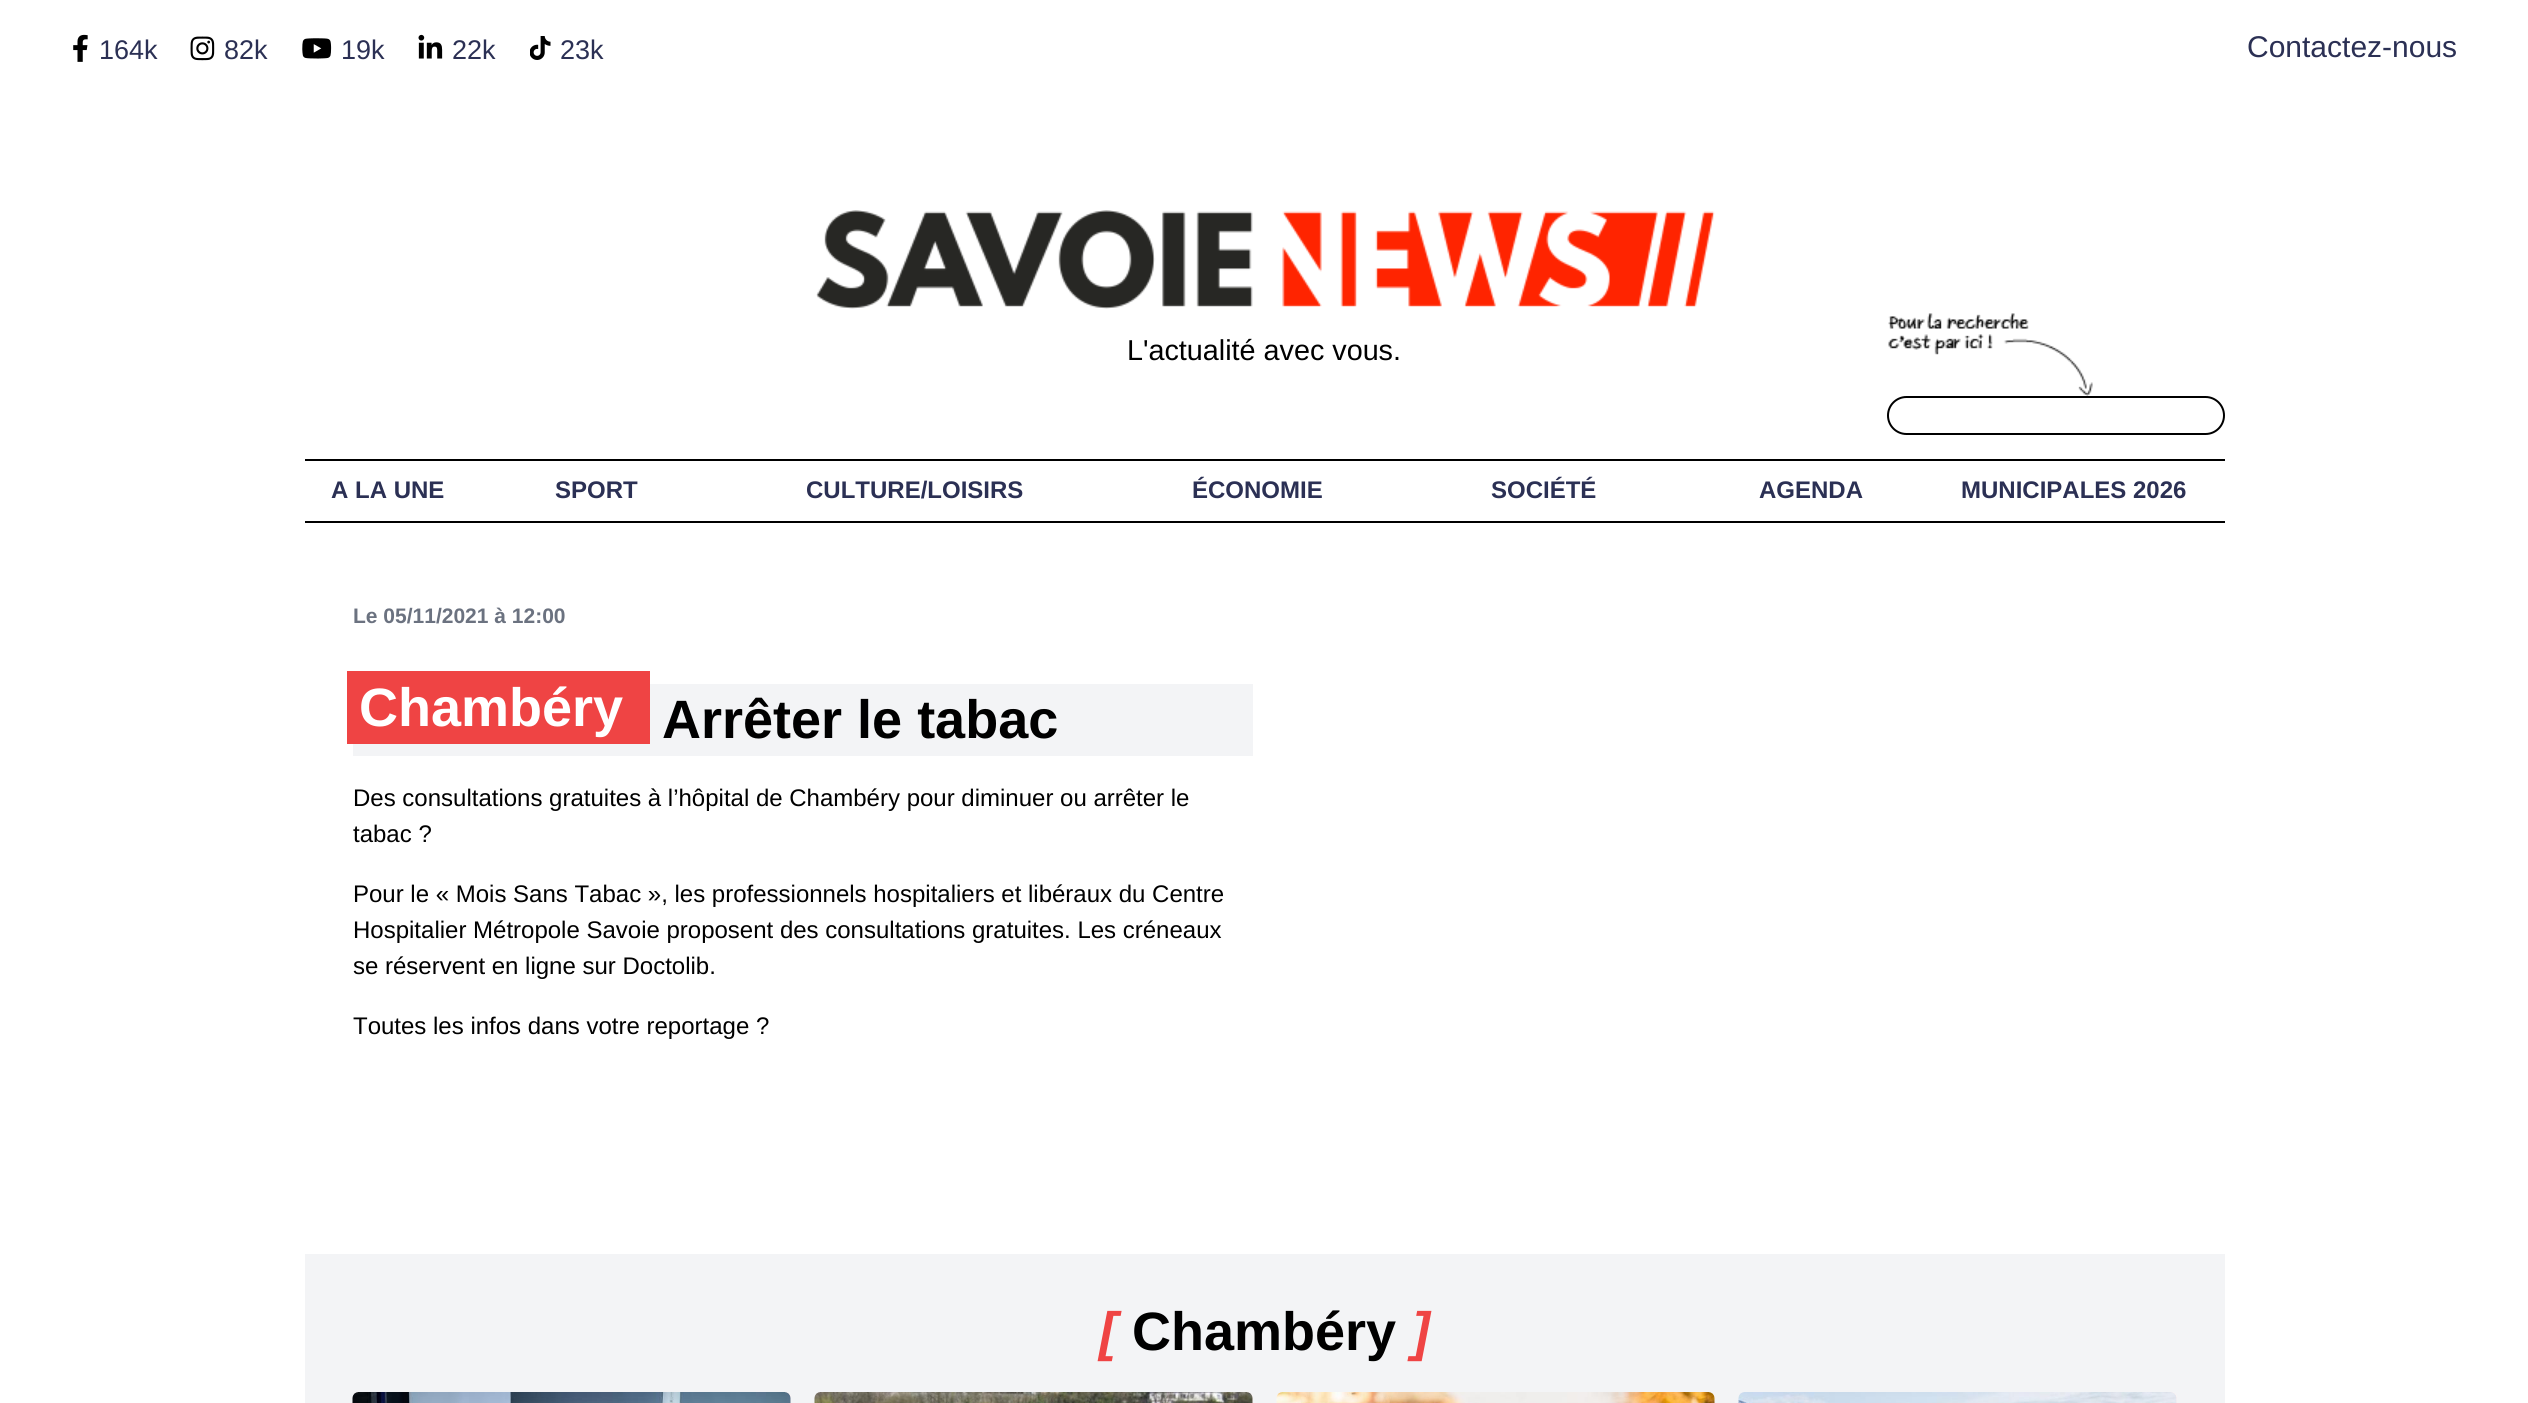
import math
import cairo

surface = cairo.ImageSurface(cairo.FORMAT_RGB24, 2528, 1403)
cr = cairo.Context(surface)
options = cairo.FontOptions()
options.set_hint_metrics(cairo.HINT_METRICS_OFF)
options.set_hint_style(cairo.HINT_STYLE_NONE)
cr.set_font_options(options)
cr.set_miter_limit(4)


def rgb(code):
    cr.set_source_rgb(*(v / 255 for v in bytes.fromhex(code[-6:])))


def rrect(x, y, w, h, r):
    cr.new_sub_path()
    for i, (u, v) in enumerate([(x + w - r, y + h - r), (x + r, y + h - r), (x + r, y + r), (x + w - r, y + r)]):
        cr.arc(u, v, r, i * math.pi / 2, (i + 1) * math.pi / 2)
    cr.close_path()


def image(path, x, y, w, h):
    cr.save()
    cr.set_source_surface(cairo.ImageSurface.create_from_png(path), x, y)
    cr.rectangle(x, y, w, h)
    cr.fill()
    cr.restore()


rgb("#ffffff")
cr.paint()
image("img/1.png", 73, 34, 15, 28)
image("img/2.png", 190, 36, 25, 25)
image("img/3.png", 302, 38, 30, 21)
image("img/4.png", 418, 34, 25, 25)
image("img/5.png", 530, 36, 21, 24)
image("img/6.png", 816, 210, 899, 99)
rgb("#000000")
cr.rectangle(305, 459, 1920, 2)
cr.fill()
cr.rectangle(305, 521, 1920, 2)
cr.fill()
image("img/7.png", 1888, 313, 205, 83)
rrect(1888, 397, 336, 37, 18.5)
cr.stroke()
for x, y, w, h, color in [
    (353, 684, 900, 72, "#f3f4f6"),
    (347, 671, 303, 73, "#ef4444"),
    (305, 1254, 1920, 149, "#f3f4f6"),
]:
    rgb(color)
    cr.rectangle(x, y, w, h)
    cr.fill()
rgb("#fef2f2")
rrect(353, 1392, 438, 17, 6)
cr.fill()
image("img/8.png", 352, 1392, 439, 11)
rrect(815, 1392, 438, 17, 6)
cr.fill()
image("img/9.png", 814, 1392, 439, 11)
rrect(1277, 1392, 438, 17, 6)
cr.fill()
image("img/10.png", 1276, 1392, 439, 11)
rrect(1739, 1392, 438, 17, 6)
cr.fill()
image("img/11.png", 1738, 1392, 439, 11)
cr.select_font_face("Liberation Sans")
cr.set_font_size(27)
rgb("#2b3054")
for x, y, s in [
    (99, 59, "164k"),
    (224, 59, "82k"),
    (341, 59, "19k"),
    (452, 59, "22k"),
    (560, 59, "23k"),
]:
    cr.move_to(x, y)
    cr.show_text(s)
cr.set_font_size(30)
cr.move_to(2247, 57)
cr.show_text("Contactez-nous")
cr.set_font_size(28.75)
rgb("#000000")
cr.move_to(1127, 360)
cr.show_text("L'actualité avec vous.")
cr.select_font_face("Liberation Sans", cairo.FONT_SLANT_NORMAL, cairo.FONT_WEIGHT_BOLD)
cr.set_font_size(24)
rgb("#2b3054")
for x, y, s in [
    (331, 498, "A LA UNE"),
    (555, 498, "SPORT"),
    (806, 498, "CULTURE/LOISIRS"),
    (1192, 498, "ÉCONOMIE"),
    (1491, 498, "SOCIÉTÉ"),
    (1759, 498, "AGENDA"),
    (1961, 498, "MUNICIPALES 2026"),
]:
    cr.move_to(x, y)
    cr.show_text(s)
cr.set_font_size(21)
rgb("#6b7280")
cr.move_to(353, 623)
cr.show_text("Le 05/11/2021 à 12:00")
cr.set_font_size(54)
rgb("#ffffff")
cr.move_to(359, 726)
cr.show_text("Chambéry")
rgb("#000000")
cr.move_to(662, 738)
cr.show_text("Arrêter le tabac")
cr.select_font_face("Liberation Sans")
cr.set_font_size(24)
for x, y, s in [
    (353, 806, "Des consultations gratuites à l’hôpital de Chambéry pour diminuer ou arrêter le"),
    (353, 842, "tabac ?"),
    (353, 902, "Pour le « Mois Sans Tabac », les professionnels hospitaliers et libéraux du Centre"),
    (353, 938, "Hospitalier Métropole Savoie proposent des consultations gratuites. Les créneaux"),
    (353, 974, "se réservent en ligne sur Doctolib."),
    (353, 1034, "Toutes les infos dans votre reportage ?"),
]:
    cr.move_to(x, y)
    cr.show_text(s)
cr.select_font_face("Liberation Sans", cairo.FONT_SLANT_ITALIC, cairo.FONT_WEIGHT_BOLD)
cr.set_font_size(54)
rgb("#ef4444")
cr.move_to(1099, 1350)
cr.show_text("[")
cr.select_font_face("Liberation Sans", cairo.FONT_SLANT_NORMAL, cairo.FONT_WEIGHT_BOLD)
rgb("#000000")
cr.move_to(1132, 1350)
cr.show_text("Chambéry")
cr.select_font_face("Liberation Sans", cairo.FONT_SLANT_ITALIC, cairo.FONT_WEIGHT_BOLD)
rgb("#ef4444")
cr.move_to(1412, 1350)
cr.show_text("]")
surface.write_to_png("page.png")
